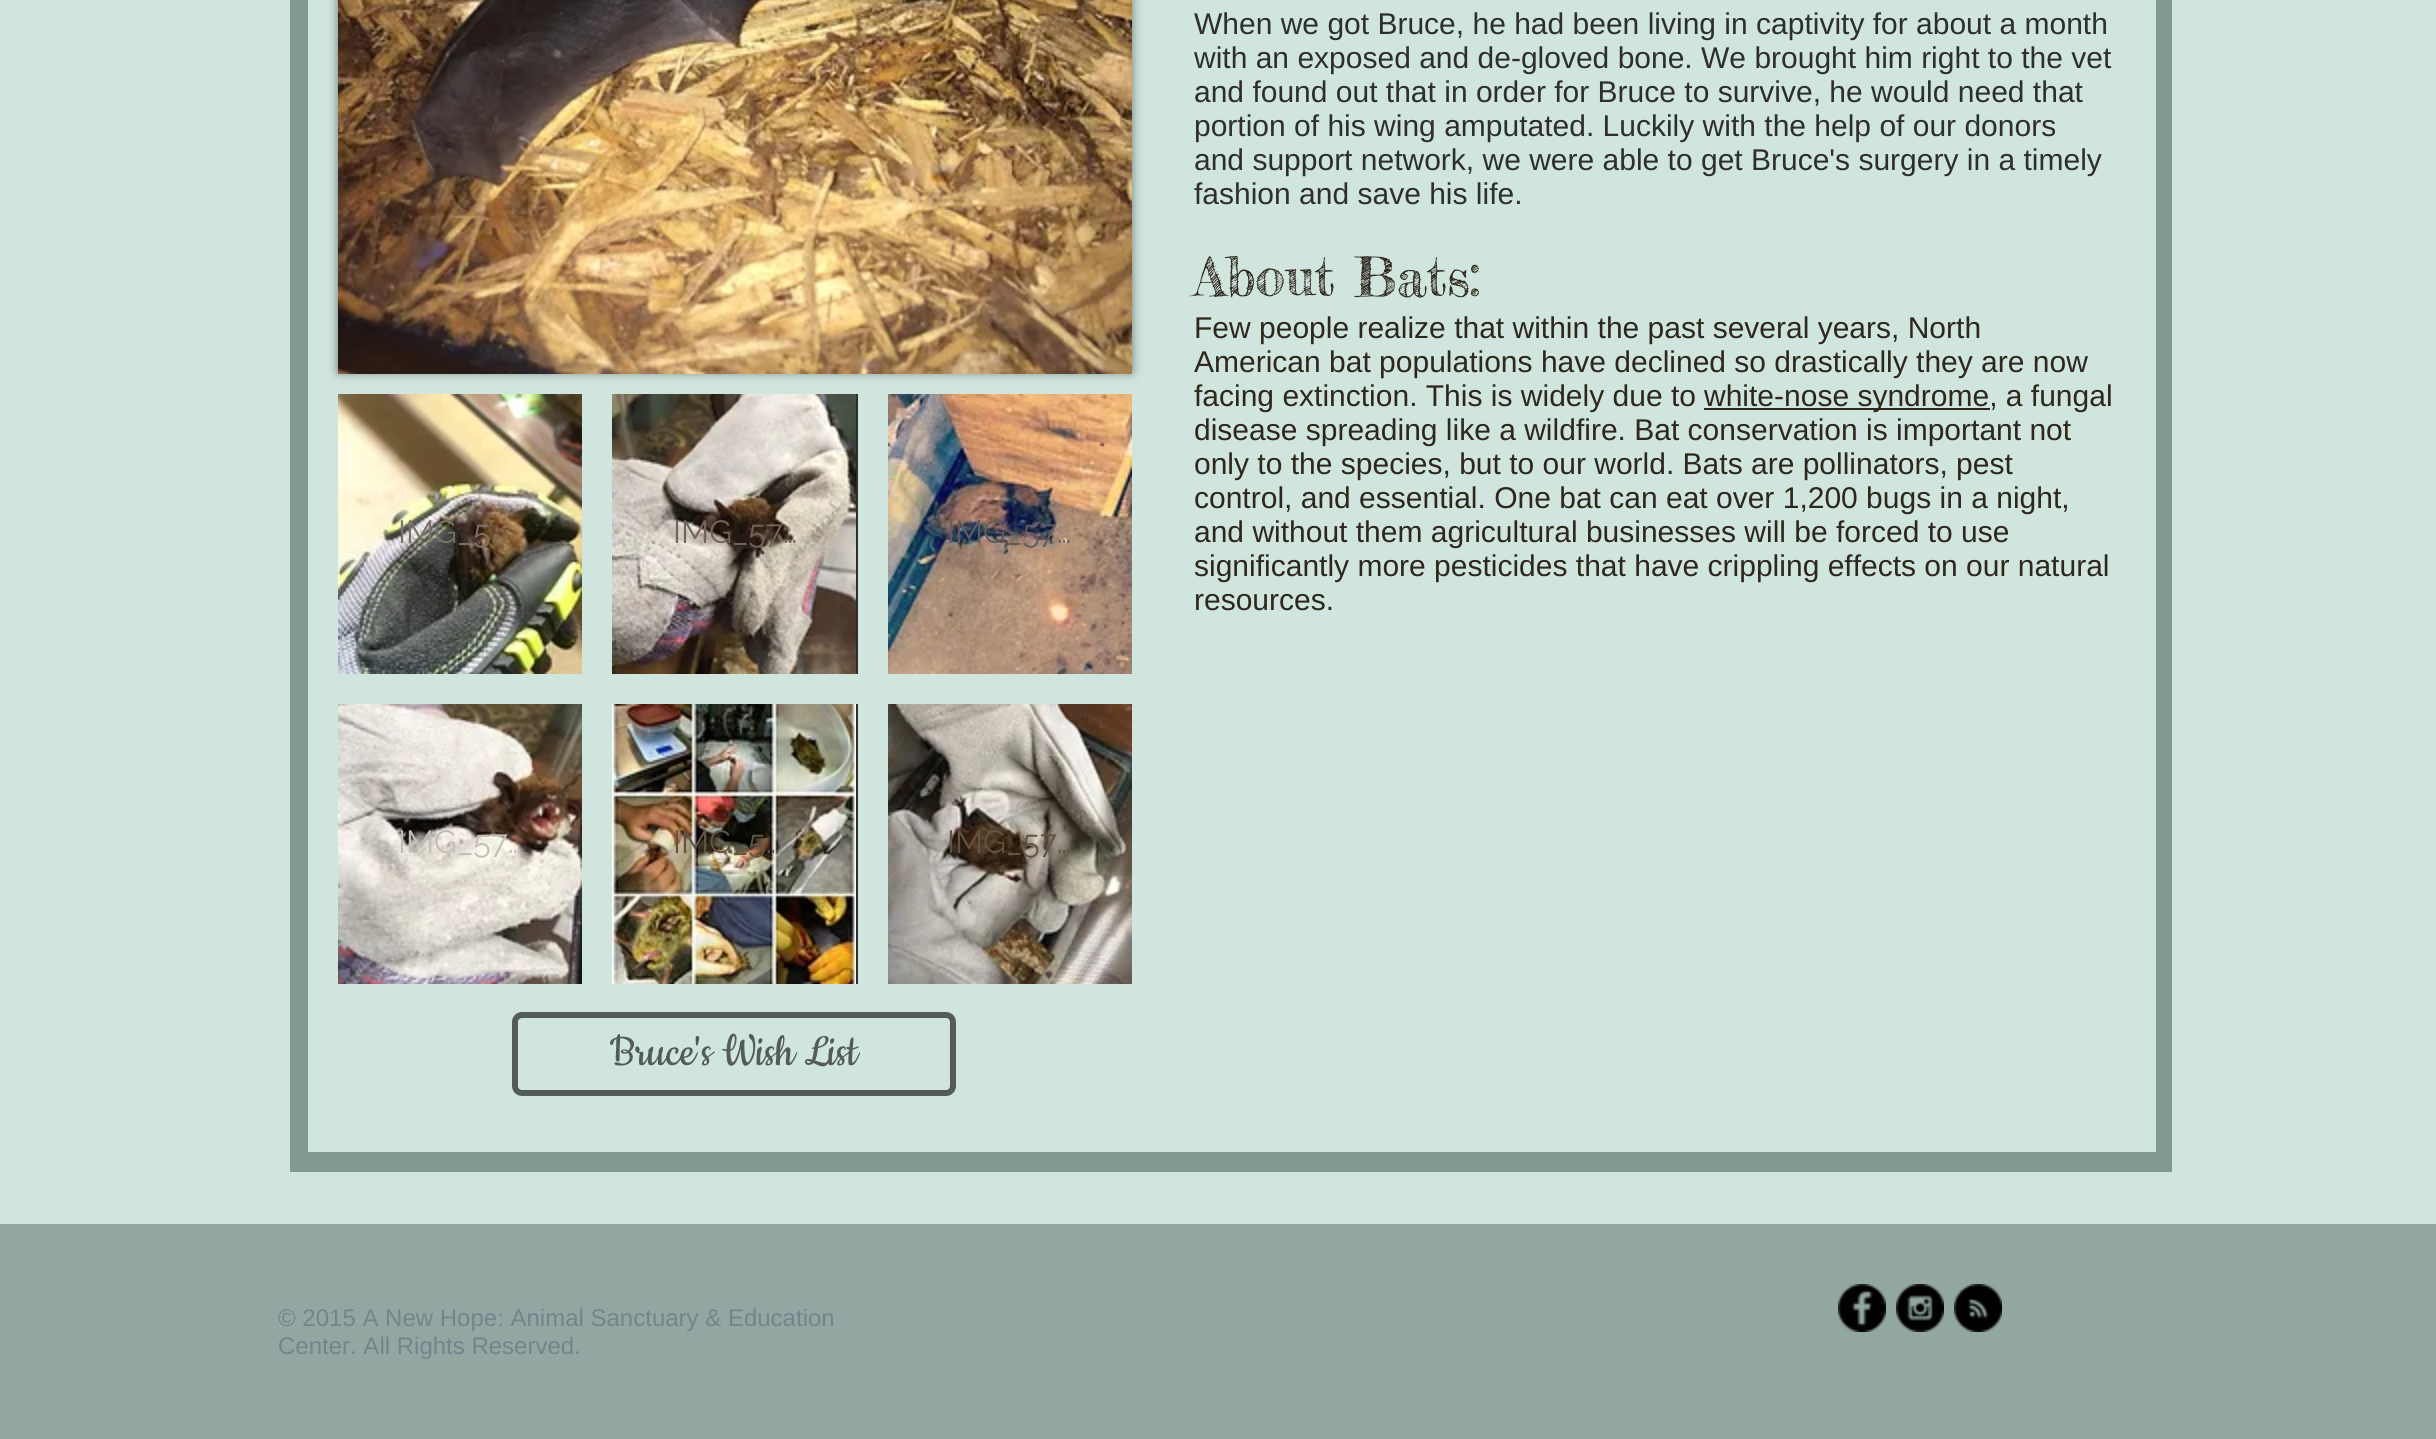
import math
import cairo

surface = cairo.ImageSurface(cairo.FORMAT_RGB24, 2436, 1439)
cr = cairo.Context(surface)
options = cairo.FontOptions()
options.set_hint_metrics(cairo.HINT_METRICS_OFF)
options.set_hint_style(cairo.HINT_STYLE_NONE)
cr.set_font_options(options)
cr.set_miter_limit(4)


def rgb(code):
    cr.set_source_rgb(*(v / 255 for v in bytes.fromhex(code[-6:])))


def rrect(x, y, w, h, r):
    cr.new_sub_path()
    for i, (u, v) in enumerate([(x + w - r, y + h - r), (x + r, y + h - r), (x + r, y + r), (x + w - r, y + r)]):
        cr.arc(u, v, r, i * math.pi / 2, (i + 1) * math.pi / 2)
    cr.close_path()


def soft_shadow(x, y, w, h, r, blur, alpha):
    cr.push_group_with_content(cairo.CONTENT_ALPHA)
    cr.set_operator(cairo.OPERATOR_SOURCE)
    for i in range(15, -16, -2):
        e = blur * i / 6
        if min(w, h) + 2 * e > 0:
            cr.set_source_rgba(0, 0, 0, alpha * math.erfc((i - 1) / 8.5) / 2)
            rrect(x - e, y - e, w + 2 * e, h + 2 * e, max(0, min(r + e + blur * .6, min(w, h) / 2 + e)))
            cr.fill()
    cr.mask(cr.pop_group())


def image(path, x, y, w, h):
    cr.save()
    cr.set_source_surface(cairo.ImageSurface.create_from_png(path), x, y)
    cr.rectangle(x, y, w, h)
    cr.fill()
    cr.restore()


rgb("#d0e5de")
cr.paint()
rgb("#809a91")
cr.rectangle(290, 0, 1882, 1172)
cr.fill()
rgb("#d0e5de")
cr.rectangle(308, 0, 1848, 1152)
cr.fill()
rgb("#000000")
soft_shadow(338, -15, 794, 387, 0, 5, 0.5)
image("img/1.png", 338, 0, 794, 374)
rgb("#2d271d")
cr.rectangle(1704, 408, 286, 2)
cr.fill()
image("img/2.png", 338, 394, 244, 280)
rgb("#2f2e2e")
cr.rectangle(856, 394, 2, 280)
cr.fill()
image("img/3.png", 612, 394, 244, 280)
image("img/4.png", 888, 394, 244, 280)
image("img/5.png", 338, 704, 244, 280)
cr.rectangle(856, 704, 2, 280)
cr.fill()
image("img/6.png", 612, 704, 244, 280)
image("img/7.png", 888, 704, 244, 280)
rrect(515, 1015, 438, 78, 7)
rgb("#535b58")
cr.set_line_width(6)
cr.stroke()
rgb("#92a6a2")
cr.rectangle(0, 1224, 2436, 215)
cr.fill()
image("img/8.png", 1838, 1284, 48, 48)
image("img/9.png", 1896, 1284, 48, 48)
image("img/10.png", 1954, 1284, 48, 48)
cr.select_font_face("Liberation Sans")
cr.set_font_size(30)
rgb("#2f2e2e")
for x, y, s in [
    (1194, 34, "When we got Bruce, he had been living in captivity for about a month"),
    (1194, 68, "with an exposed and de-gloved bone. We brought him right to the vet"),
    (1194, 102, "and found out that in order for Bruce to survive, he would need that"),
    (1194, 136, "portion of his wing amputated. Luckily with the help of our donors"),
    (1194, 170, "and support network, we were able to get Bruce's surgery in a timely"),
    (1194, 204, "fashion and save his life."),
]:
    cr.move_to(x, y)
    cr.show_text(s)
cr.select_font_face("Fredericka the Great")
cr.set_font_size(54)
rgb("#2d271d")
cr.move_to(1194, 296)
cr.show_text("About Bats:")
cr.select_font_face("Liberation Sans")
cr.set_font_size(30)
for x, y, s in [
    (1194, 338, "Few people realize that within the past several years, North"),
    (1194, 372, "American bat populations have declined so drastically they are now"),
    (1194, 406, "facing extinction. This is widely due to"),
    (1704, 406, "white-nose syndrome, a fungal"),
    (1194, 440, "disease spreading like a wildfire. Bat conservation is important not"),
    (1194, 474, "only to the species, but to our world. Bats are pollinators, pest"),
    (1194, 508, "control, and essential. One bat can eat over 1,200 bugs in a night,"),
    (1194, 542, "and without them agricultural businesses will be forced to use"),
    (1194, 576, "significantly more pesticides that have crippling effects on our natural"),
    (1194, 610, "resources."),
]:
    cr.move_to(x, y)
    cr.show_text(s)
cr.select_font_face("Raleway")
cr.set_font_size(32)
rgb("#7b7367")
cr.move_to(398, 543)
cr.show_text("IMG_5…")
rgb("#70645b")
cr.move_to(673, 543)
cr.show_text("IMG_57…")
rgb("#625b61")
cr.move_to(947, 543)
cr.show_text("IMG_57…")
rgb("#c2bdb6")
cr.move_to(398, 853)
cr.show_text("IMG_57…")
rgb("#625442")
cr.move_to(673, 853)
cr.show_text("IMG_5…")
cr.move_to(947, 853)
cr.show_text("IMG_57…")
cr.select_font_face("Cookie")
cr.set_font_size(50)
rgb("#535b58")
cr.move_to(610, 1065)
cr.show_text("Bruce's Wish List")
cr.select_font_face("Liberation Sans")
cr.set_font_size(24)
rgb("#72858c")
cr.move_to(278, 1326)
cr.show_text("© 2015 A New Hope: Animal Sanctuary & Education")
cr.move_to(278, 1354)
cr.show_text("Center. All Rights Reserved.")
surface.write_to_png("page.png")
